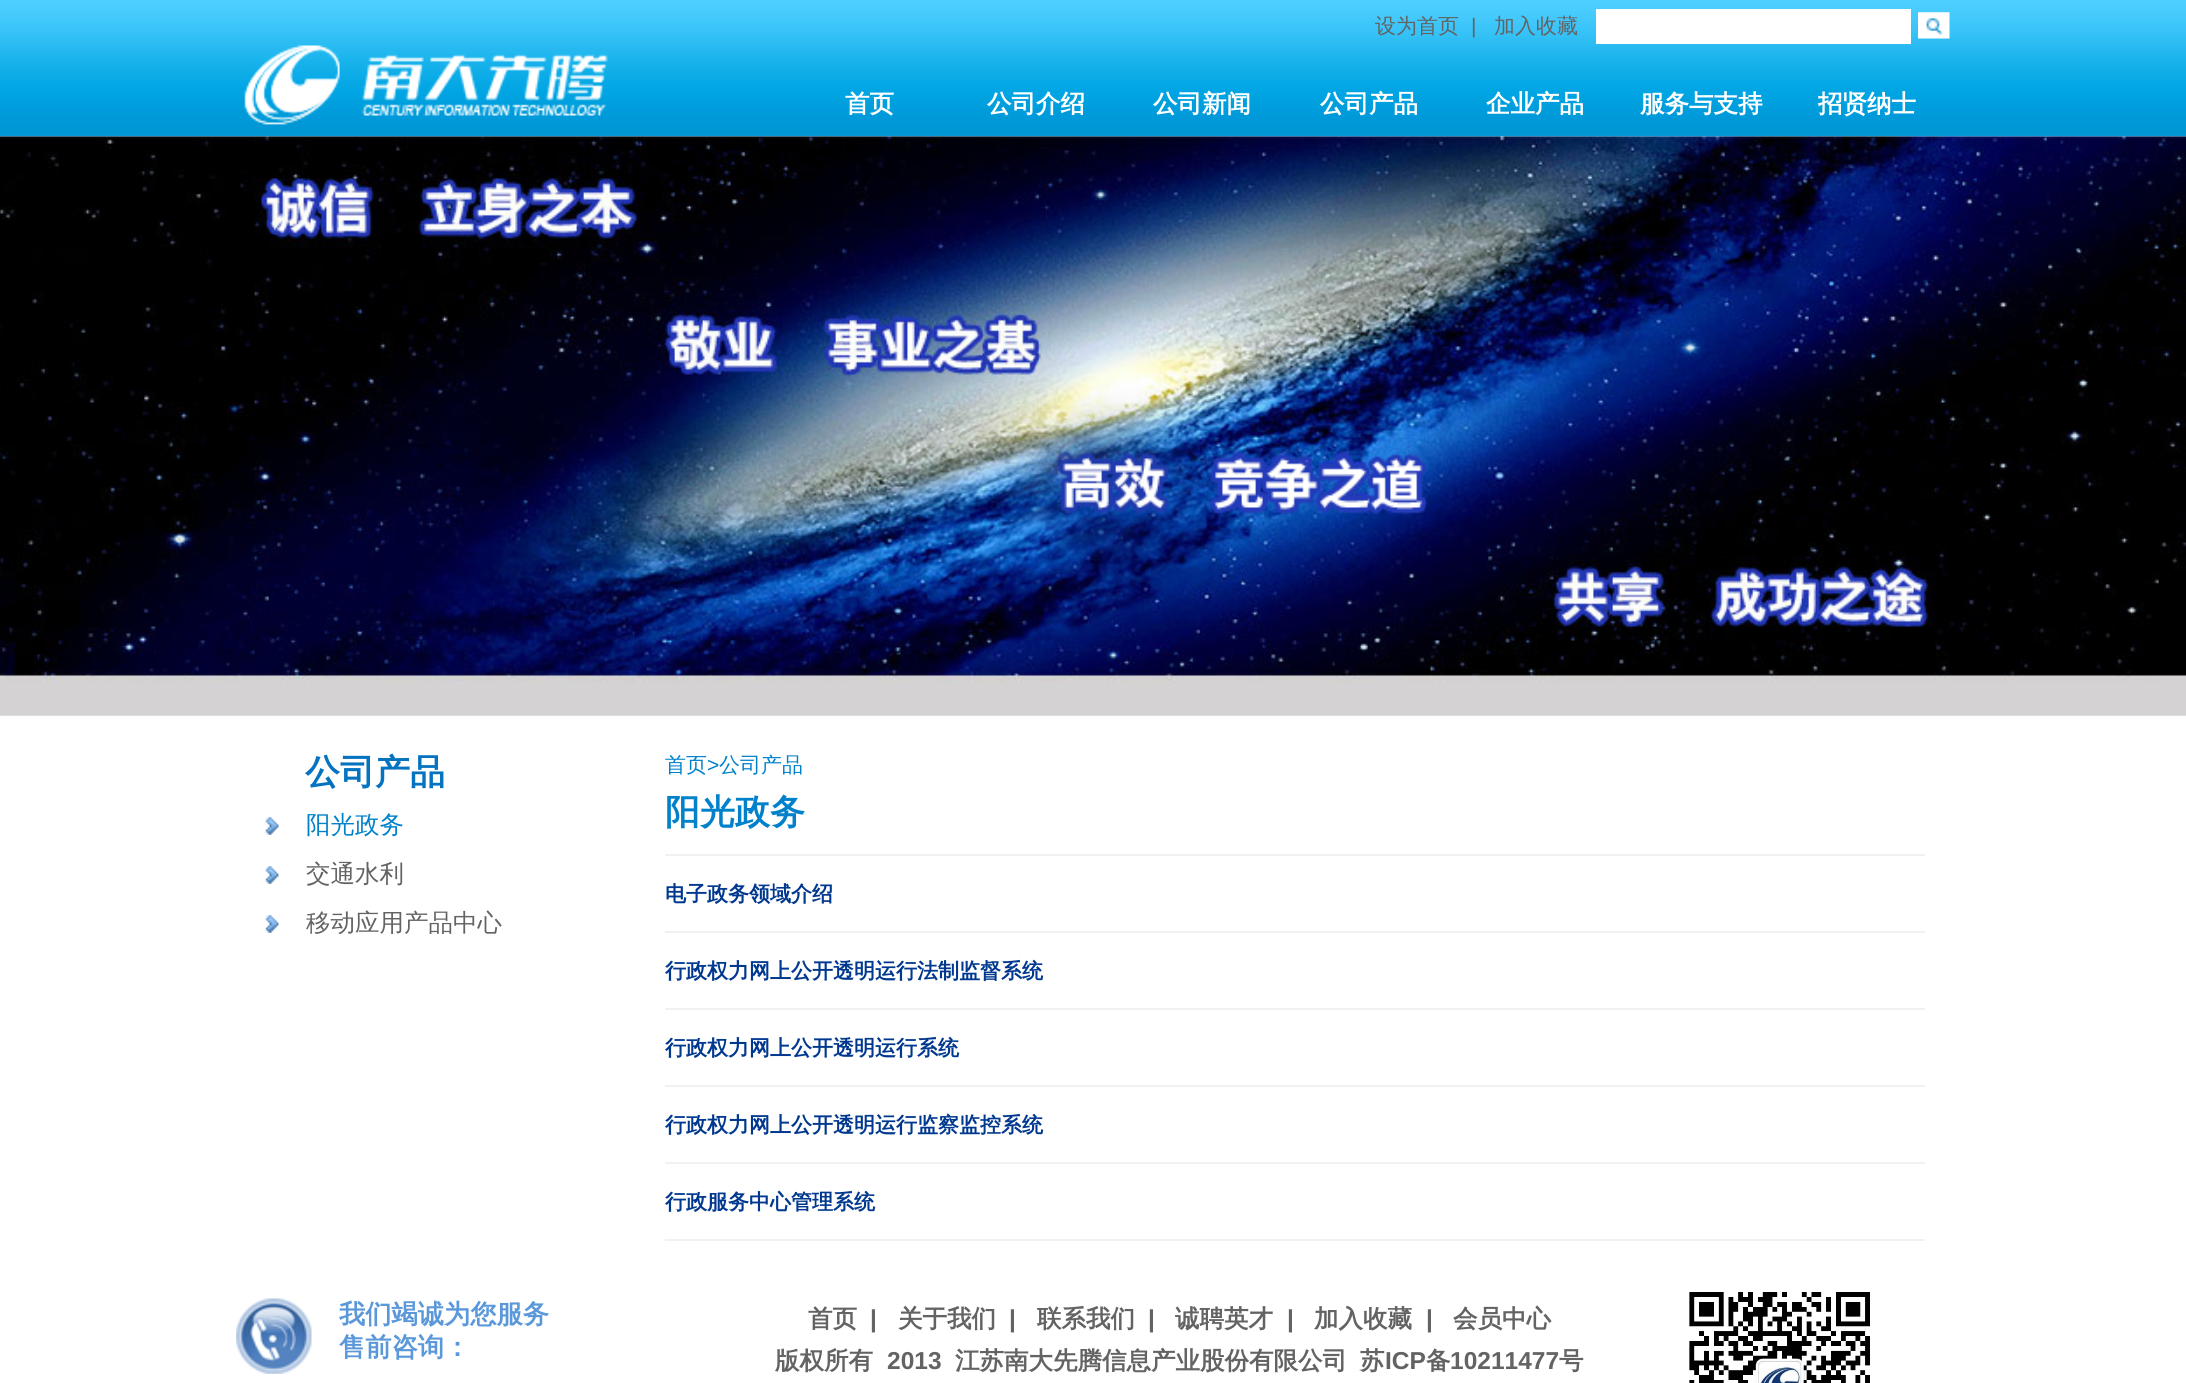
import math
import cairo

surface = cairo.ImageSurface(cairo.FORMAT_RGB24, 2186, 1383)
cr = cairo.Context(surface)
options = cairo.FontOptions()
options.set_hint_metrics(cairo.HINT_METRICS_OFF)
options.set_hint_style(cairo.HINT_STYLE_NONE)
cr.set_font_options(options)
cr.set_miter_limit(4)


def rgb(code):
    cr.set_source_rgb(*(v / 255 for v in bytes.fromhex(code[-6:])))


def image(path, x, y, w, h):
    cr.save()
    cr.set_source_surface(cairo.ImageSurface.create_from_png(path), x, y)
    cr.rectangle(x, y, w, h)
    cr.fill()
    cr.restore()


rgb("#ffffff")
cr.paint()
image("img/1.png", 0, 0, 2186, 137)
rgb("#ffffff")
cr.rectangle(1596, 9, 315, 35)
cr.fill()
image("img/2.png", 1918, 12, 32, 27)
image("img/3.png", 244, 45, 364, 80)
image("img/4.png", 0, 136, 2186, 580)
image("img/5.png", 265, 817, 14, 18)
image("img/5.png", 265, 866, 14, 18)
image("img/5.png", 265, 915, 14, 18)
for x, y, w, h, color in [
    (665, 854, 1260, 2, "#f1f1f1"),
    (665, 931, 1260, 2, "#f1f1f1"),
    (665, 1008, 1260, 2, "#f1f1f1"),
    (665, 1085, 1260, 2, "#f1f1f1"),
    (665, 1162, 1260, 2, "#f1f1f1"),
    (665, 1239, 1260, 2, "#f1f1f1"),
]:
    rgb(color)
    cr.rectangle(x, y, w, h)
    cr.fill()
image("img/6.png", 236, 1298, 76, 76)
image("img/7.png", 1689, 1292, 181, 91)
cr.select_font_face("WenQuanYi Zen Hei Medium")
cr.set_font_size(21)
rgb("#636363")
cr.move_to(1375, 33)
cr.show_text("设为首页")
cr.select_font_face("Liberation Sans")
cr.move_to(1471, 33)
cr.show_text("|")
cr.select_font_face("WenQuanYi Zen Hei Medium")
cr.move_to(1494, 33)
cr.show_text("加入收藏")
cr.select_font_face("WenQuanYi Zen Hei", cairo.FONT_SLANT_NORMAL, cairo.FONT_WEIGHT_BOLD)
cr.set_font_size(24.5)
rgb("#ffffff")
for x, y, s in [
    (845, 112, "首页"),
    (987, 112, "公司介绍"),
    (1153, 112, "公司新闻"),
    (1320, 112, "公司产品"),
    (1486, 112, "企业产品"),
    (1640, 112, "服务与支持"),
    (1818, 112, "招贤纳士"),
]:
    cr.move_to(x, y)
    cr.show_text(s)
cr.set_font_size(35)
rgb("#0573c0")
cr.move_to(305, 784)
cr.show_text("公司产品")
cr.select_font_face("WenQuanYi Zen Hei Medium")
cr.set_font_size(24.5)
rgb("#0081ca")
cr.move_to(306, 833)
cr.show_text("阳光政务")
rgb("#636363")
cr.move_to(306, 882)
cr.show_text("交通水利")
cr.move_to(306, 931)
cr.show_text("移动应用产品中心")
cr.set_font_size(21)
rgb("#0081ca")
cr.move_to(665, 772)
cr.show_text("首页")
cr.select_font_face("Liberation Sans")
cr.move_to(707, 772)
cr.show_text(">")
cr.select_font_face("WenQuanYi Zen Hei Medium")
cr.move_to(719, 772)
cr.show_text("公司产品")
cr.select_font_face("WenQuanYi Zen Hei", cairo.FONT_SLANT_NORMAL, cairo.FONT_WEIGHT_BOLD)
cr.set_font_size(35)
cr.move_to(665, 824)
cr.show_text("阳光政务")
cr.set_font_size(21)
rgb("#00388f")
for x, y, s in [
    (665, 901, "电子政务领域介绍"),
    (665, 978, "行政权力网上公开透明运行法制监督系统"),
    (665, 1055, "行政权力网上公开透明运行系统"),
    (665, 1132, "行政权力网上公开透明运行监察监控系统"),
    (665, 1209, "行政服务中心管理系统"),
]:
    cr.move_to(x, y)
    cr.show_text(s)
cr.set_font_size(26.25)
rgb("#5b98da")
cr.move_to(339, 1323)
cr.show_text("我们竭诚为您服务")
cr.move_to(339, 1356)
cr.show_text("售前咨询：")
cr.set_font_size(24.5)
rgb("#636363")
cr.move_to(808, 1327)
cr.show_text("首页")
cr.select_font_face("Liberation Sans", cairo.FONT_SLANT_NORMAL, cairo.FONT_WEIGHT_BOLD)
cr.move_to(870, 1327)
cr.show_text("|")
cr.select_font_face("WenQuanYi Zen Hei", cairo.FONT_SLANT_NORMAL, cairo.FONT_WEIGHT_BOLD)
cr.move_to(898, 1327)
cr.show_text("关于我们")
cr.select_font_face("Liberation Sans", cairo.FONT_SLANT_NORMAL, cairo.FONT_WEIGHT_BOLD)
cr.move_to(1009, 1327)
cr.show_text("|")
cr.select_font_face("WenQuanYi Zen Hei", cairo.FONT_SLANT_NORMAL, cairo.FONT_WEIGHT_BOLD)
cr.move_to(1037, 1327)
cr.show_text("联系我们")
cr.select_font_face("Liberation Sans", cairo.FONT_SLANT_NORMAL, cairo.FONT_WEIGHT_BOLD)
cr.move_to(1148, 1327)
cr.show_text("|")
cr.select_font_face("WenQuanYi Zen Hei", cairo.FONT_SLANT_NORMAL, cairo.FONT_WEIGHT_BOLD)
cr.move_to(1175, 1327)
cr.show_text("诚聘英才")
cr.select_font_face("Liberation Sans", cairo.FONT_SLANT_NORMAL, cairo.FONT_WEIGHT_BOLD)
cr.move_to(1287, 1327)
cr.show_text("|")
cr.select_font_face("WenQuanYi Zen Hei", cairo.FONT_SLANT_NORMAL, cairo.FONT_WEIGHT_BOLD)
cr.move_to(1314, 1327)
cr.show_text("加入收藏")
cr.select_font_face("Liberation Sans", cairo.FONT_SLANT_NORMAL, cairo.FONT_WEIGHT_BOLD)
cr.move_to(1426, 1327)
cr.show_text("|")
cr.select_font_face("WenQuanYi Zen Hei", cairo.FONT_SLANT_NORMAL, cairo.FONT_WEIGHT_BOLD)
cr.move_to(1453, 1327)
cr.show_text("会员中心")
cr.move_to(775, 1369)
cr.show_text("版权所有")
cr.select_font_face("Liberation Sans", cairo.FONT_SLANT_NORMAL, cairo.FONT_WEIGHT_BOLD)
cr.move_to(887, 1369)
cr.show_text("2013")
cr.select_font_face("WenQuanYi Zen Hei", cairo.FONT_SLANT_NORMAL, cairo.FONT_WEIGHT_BOLD)
cr.move_to(955, 1369)
cr.show_text("江苏南大先腾信息产业股份有限公司")
cr.move_to(1360, 1369)
cr.show_text("苏")
cr.select_font_face("Liberation Sans", cairo.FONT_SLANT_NORMAL, cairo.FONT_WEIGHT_BOLD)
cr.move_to(1385, 1369)
cr.show_text("ICP")
cr.select_font_face("WenQuanYi Zen Hei", cairo.FONT_SLANT_NORMAL, cairo.FONT_WEIGHT_BOLD)
cr.move_to(1426, 1369)
cr.show_text("备")
cr.select_font_face("Liberation Sans", cairo.FONT_SLANT_NORMAL, cairo.FONT_WEIGHT_BOLD)
cr.move_to(1450, 1369)
cr.show_text("10211477")
cr.select_font_face("WenQuanYi Zen Hei", cairo.FONT_SLANT_NORMAL, cairo.FONT_WEIGHT_BOLD)
cr.move_to(1559, 1369)
cr.show_text("号")
surface.write_to_png("page.png")
